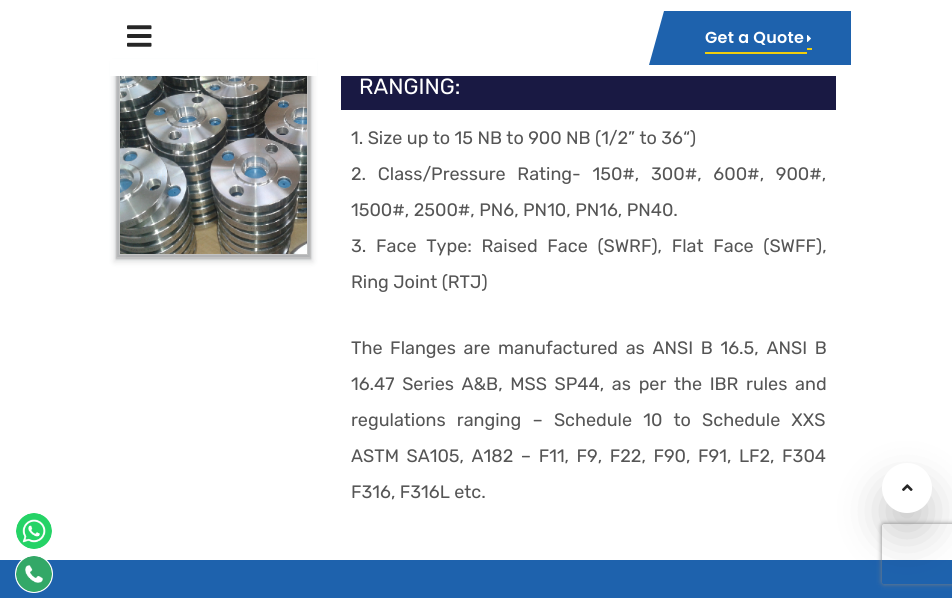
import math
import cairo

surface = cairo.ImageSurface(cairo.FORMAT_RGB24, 952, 598)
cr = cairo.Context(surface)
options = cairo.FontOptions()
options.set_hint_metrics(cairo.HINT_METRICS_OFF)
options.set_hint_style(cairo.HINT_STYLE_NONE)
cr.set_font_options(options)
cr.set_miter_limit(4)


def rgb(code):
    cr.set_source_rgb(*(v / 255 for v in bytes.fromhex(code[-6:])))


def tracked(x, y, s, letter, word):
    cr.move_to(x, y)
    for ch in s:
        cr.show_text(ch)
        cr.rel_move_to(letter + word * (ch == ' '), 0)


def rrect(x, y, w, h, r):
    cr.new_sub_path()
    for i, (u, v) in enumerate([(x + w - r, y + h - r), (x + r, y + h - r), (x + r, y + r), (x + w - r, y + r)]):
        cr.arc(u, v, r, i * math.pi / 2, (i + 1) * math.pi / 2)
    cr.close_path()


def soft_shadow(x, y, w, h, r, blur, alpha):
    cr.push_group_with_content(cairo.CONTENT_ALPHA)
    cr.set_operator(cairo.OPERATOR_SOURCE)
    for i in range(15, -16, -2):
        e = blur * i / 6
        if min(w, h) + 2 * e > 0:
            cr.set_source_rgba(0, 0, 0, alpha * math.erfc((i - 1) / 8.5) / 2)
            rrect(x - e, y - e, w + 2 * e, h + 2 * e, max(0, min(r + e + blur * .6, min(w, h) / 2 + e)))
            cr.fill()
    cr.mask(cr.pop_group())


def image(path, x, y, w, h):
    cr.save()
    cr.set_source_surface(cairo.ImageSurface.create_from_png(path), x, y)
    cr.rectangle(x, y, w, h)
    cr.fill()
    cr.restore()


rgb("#ffffff")
cr.paint()
rgb("#3c4043")
soft_shadow(114, 63, 199, 199, 0, 3, 0.15)
soft_shadow(116, 64, 195, 195, 0, 1, 0.3)
cr.rectangle(116.5, 63.5, 194, 194)
rgb("#c2c2c2")
cr.set_line_width(1)
cr.stroke()
cr.rectangle(119.5, 66.5, 188, 188)
cr.stroke()
rgb("#ffffff")
cr.rectangle(110, 59, 207, 17)
cr.fill()
image("img/1.png", 127, 25, 25, 22)
rgb("#1e62ad")
cr.new_path()
cr.move_to(664, 11)
cr.line_to(689, 11)
cr.line_to(674, 65)
cr.line_to(649, 65)
cr.close_path()
cr.fill()
for x, y, w, h, color in [
    (674, 11, 177, 54, "#1e62ad"),
    (705, 52, 102, 2, "#efcd0f"),
    (807, 48, 5, 2, "#efcd0f"),
]:
    rgb(color)
    cr.rectangle(x, y, w, h)
    cr.fill()
image("img/2.png", 807, 35, 4, 7)
image("img/3.png", 16, 513, 36, 36)
rgb("#1e62ad")
cr.rectangle(0, 560, 952, 38)
cr.fill()
rgb("#ffffff")
cr.arc(34, 574, 19, 0, 2 * math.pi)
cr.fill()
image("img/4.png", 16, 556, 36, 36)
image("img/5.png", 120, 76, 187, 178)
rgb("#191943")
cr.rectangle(341, 76, 495, 34)
cr.fill()
rgb("#000000")
soft_shadow(882, 486, 50, 50, 25, 21, 0.2)
rgb("#ffffff")
cr.arc(907, 488, 25, 0, 2 * math.pi)
cr.fill()
image("img/6.png", 902, 484, 11, 7)
cr.save()
cr.set_fill_rule(cairo.FILL_RULE_EVEN_ODD)
cr.new_path()
cr.move_to(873, 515)
cr.line_to(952, 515)
cr.line_to(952, 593)
cr.line_to(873, 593)
cr.close_path()
cr.move_to(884, 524)
cr.line_to(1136, 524)
cr.curve_to(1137, 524, 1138, 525, 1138, 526)
cr.line_to(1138, 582)
cr.curve_to(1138, 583, 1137, 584, 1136, 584)
cr.line_to(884, 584)
cr.curve_to(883, 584, 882, 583, 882, 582)
cr.line_to(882, 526)
cr.curve_to(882, 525, 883, 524, 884, 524)
cr.close_path()
cr.clip()
rgb("#808080")
soft_shadow(882, 524, 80, 60, 2, 2.5, 1)
cr.restore()
cr.select_font_face("Poppins SemiBold")
cr.set_font_size(16)
tracked(705, 43, "Get a Quote", 0.25, 0)
cr.select_font_face("Rubik")
cr.set_font_size(22)
cr.move_to(359, 94)
cr.show_text("RANGING:")
cr.set_font_size(18)
rgb("#555555")
cr.move_to(351, 144)
cr.show_text("1. Size up to 15 NB to 900 NB (1/2” to 36“)")
tracked(351, 180, "2. Class/Pressure Rating- 150#, 300#, 600#, 900#,", 0, 7.25)
cr.move_to(351, 216)
cr.show_text("1500#, 2500#, PN6, PN10, PN16, PN40.")
tracked(351, 252, "3. Face Type: Raised Face (SWRF), Flat Face (SWFF),", 0, 5.25)
cr.move_to(351, 288)
cr.show_text("Ring Joint (RTJ)")
tracked(351, 354, "The Flanges are manufactured as ANSI B 16.5, ANSI B", 0, 3.25)
tracked(351, 390, "16.47 Series A&B, MSS SP44, as per the IBR rules and", 0, 3.25)
tracked(351, 426, "regulations ranging – Schedule 10 to Schedule XXS", 0, 6.75)
tracked(351, 462, "ASTM SA105, A182 – F11, F9, F22, F90, F91, LF2, F304", 0, 3.1)
cr.move_to(351, 498)
cr.show_text("F316, F316L etc.")
surface.write_to_png("page.png")
